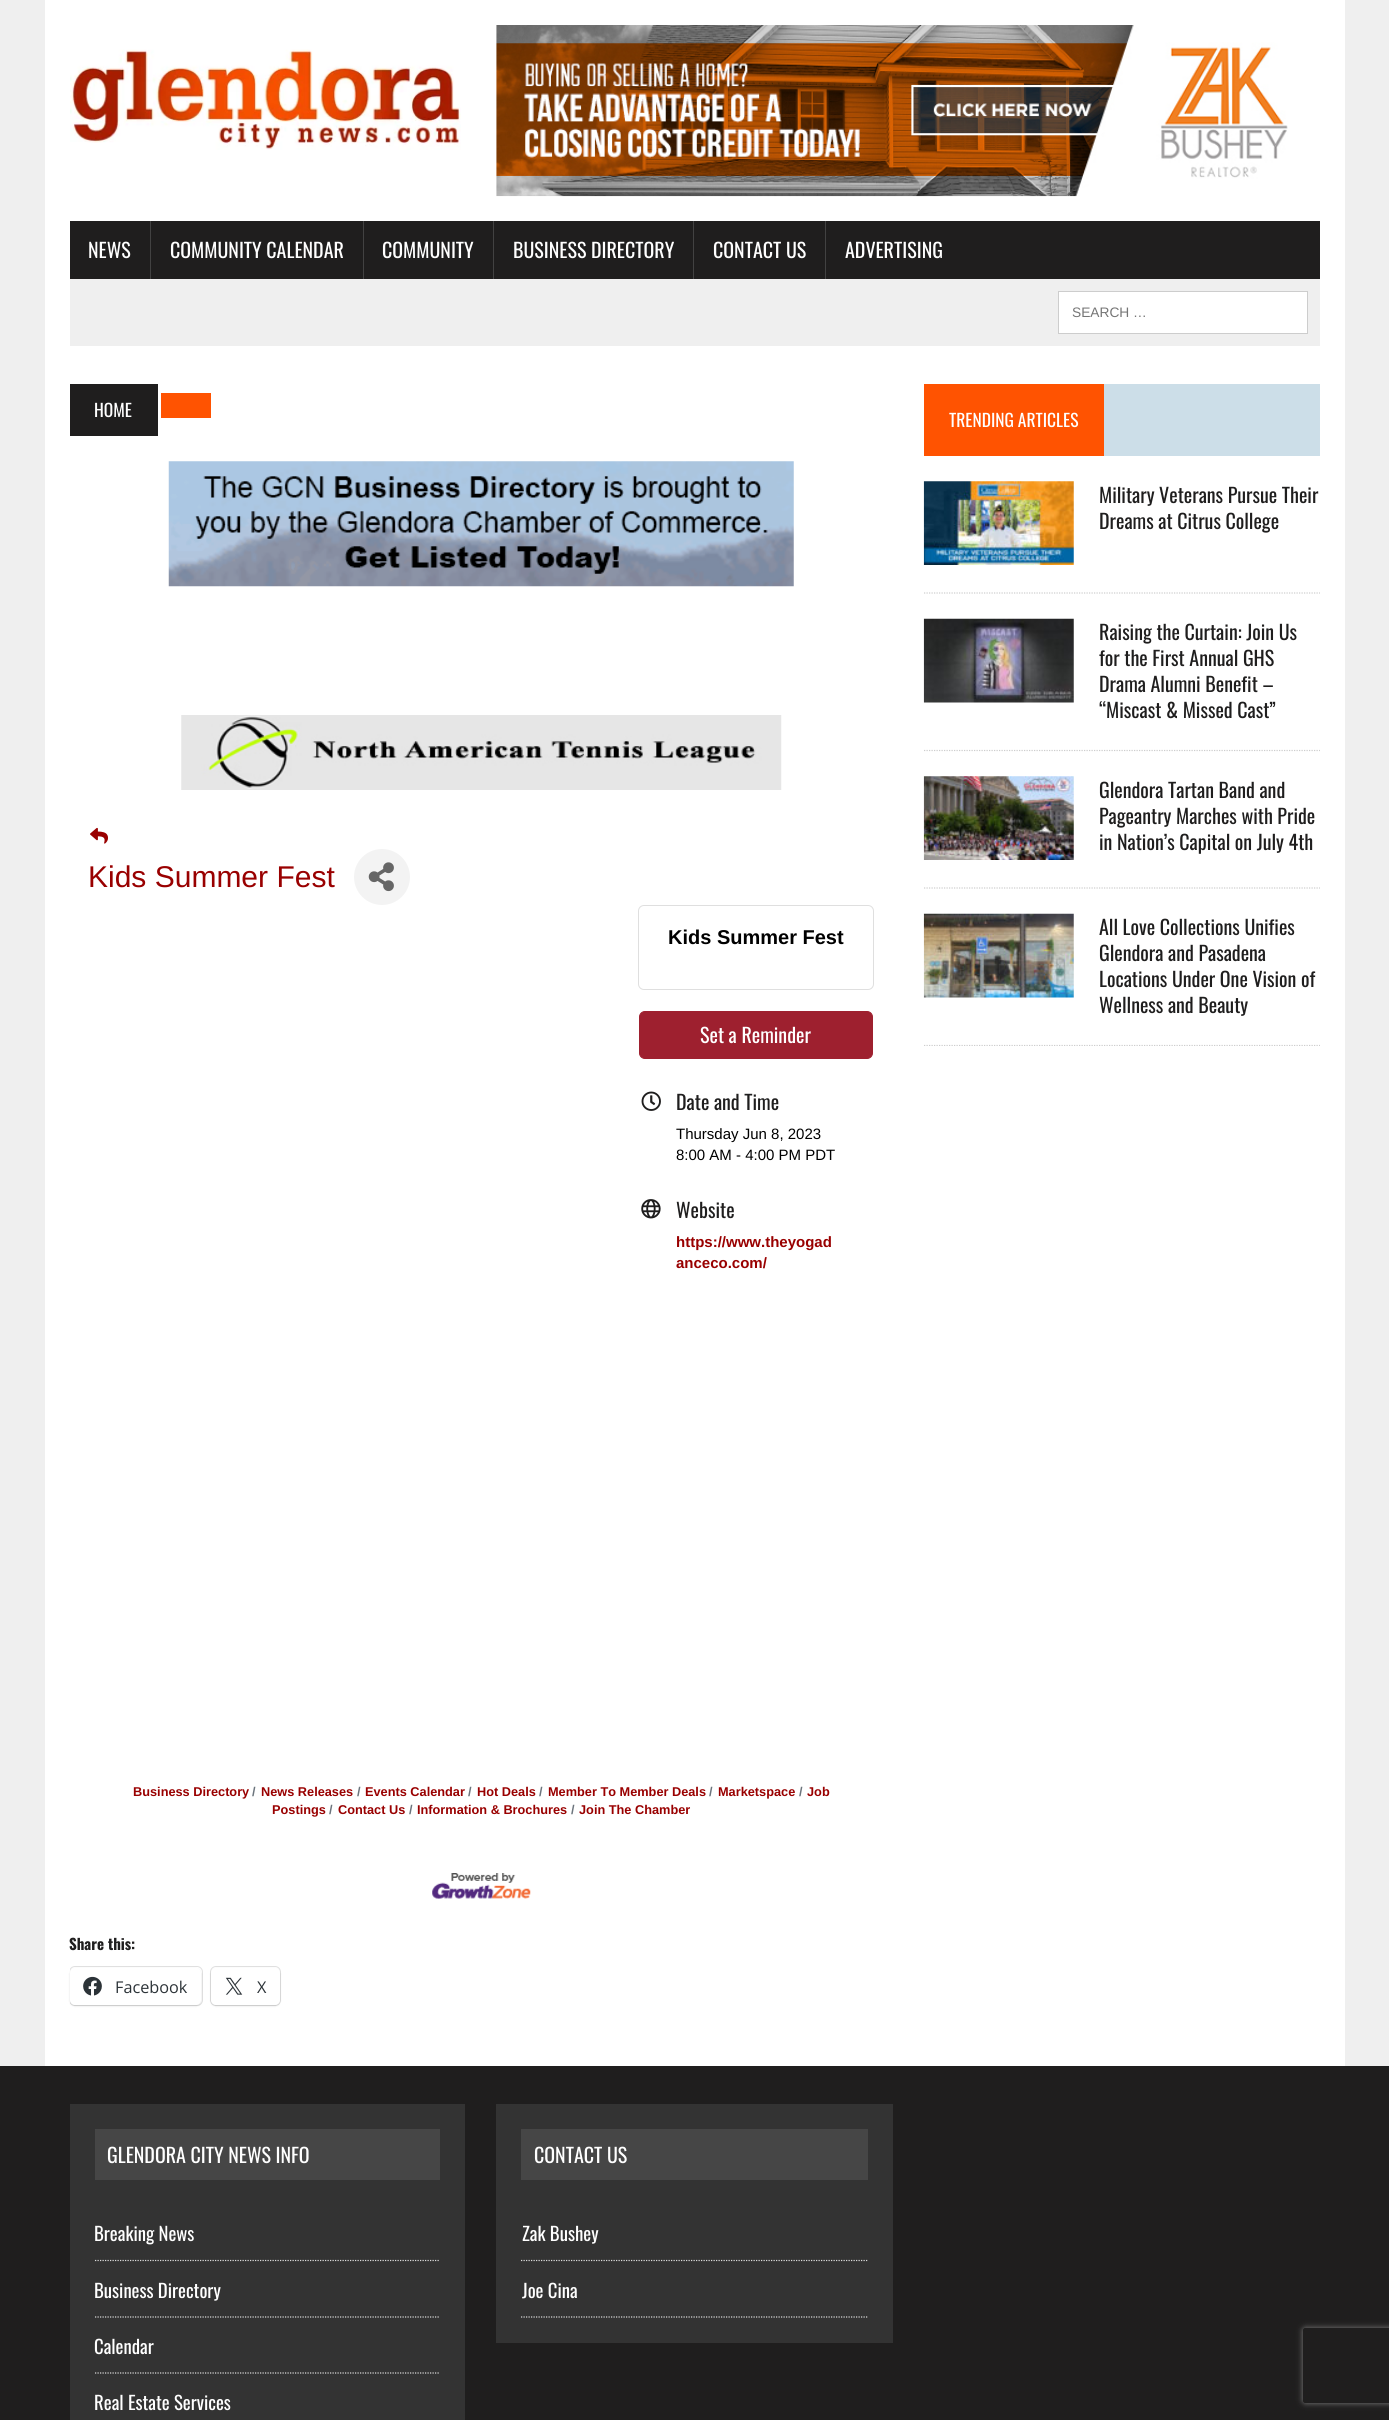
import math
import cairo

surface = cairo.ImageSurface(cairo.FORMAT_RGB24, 1389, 2420)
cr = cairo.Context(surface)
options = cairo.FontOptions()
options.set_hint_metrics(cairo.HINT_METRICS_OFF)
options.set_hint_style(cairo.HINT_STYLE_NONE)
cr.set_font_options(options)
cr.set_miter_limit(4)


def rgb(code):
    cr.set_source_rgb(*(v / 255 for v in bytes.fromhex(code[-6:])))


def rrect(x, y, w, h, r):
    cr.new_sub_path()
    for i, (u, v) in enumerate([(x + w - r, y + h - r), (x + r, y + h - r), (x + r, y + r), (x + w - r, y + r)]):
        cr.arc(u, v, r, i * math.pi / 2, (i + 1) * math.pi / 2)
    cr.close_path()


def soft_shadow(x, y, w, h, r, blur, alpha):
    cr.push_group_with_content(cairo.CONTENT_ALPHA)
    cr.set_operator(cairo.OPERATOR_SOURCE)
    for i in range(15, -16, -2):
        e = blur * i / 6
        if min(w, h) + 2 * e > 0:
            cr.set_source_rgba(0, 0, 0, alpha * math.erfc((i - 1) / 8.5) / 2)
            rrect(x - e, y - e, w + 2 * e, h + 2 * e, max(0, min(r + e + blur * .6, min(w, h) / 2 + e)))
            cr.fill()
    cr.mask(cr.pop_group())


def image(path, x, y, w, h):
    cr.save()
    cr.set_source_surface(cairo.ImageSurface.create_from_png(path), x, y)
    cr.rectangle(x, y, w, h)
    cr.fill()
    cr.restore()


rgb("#efefef")
cr.paint()
rgb("#ffffff")
cr.rectangle(45, 0, 1300, 2066)
cr.fill()
image("img/1.png", 70, 49, 391, 101)
image("img/2.png", 496, 25, 792, 172)
for x, y, w, h, color in [
    (70, 221, 1250, 58, "#1f1e1e"),
    (150, 221, 1, 58, "#424242"),
    (363, 221, 1, 58, "#424242"),
    (493, 221, 1, 58, "#424242"),
    (693, 221, 1, 58, "#424242"),
    (825, 221, 1, 58, "#424242"),
    (70, 279, 1250, 67, "#efefef"),
]:
    rgb(color)
    cr.rectangle(x, y, w, h)
    cr.fill()
rgb("#ffffff")
cr.rectangle(1058.5, 291.5, 249, 42)
cr.fill_preserve()
rgb("#cdcdcd")
cr.set_line_width(1)
cr.stroke()
rgb("#1f1e1e")
cr.rectangle(70, 384, 88, 52)
cr.fill()
rgb("#ff5301")
cr.rectangle(161, 393, 50, 25)
cr.fill()
image("img/3.png", 168, 461, 626, 126)
image("img/4.png", 181, 715, 601, 75)
image("img/5.png", 90, 827, 18, 17)
rgb("#f3f3f3")
cr.arc(382, 877, 28, 0, 2 * math.pi)
cr.fill()
image("img/6.png", 368, 862, 26, 30)
rrect(638.5, 905.5, 235, 84, 5.5)
rgb("#dfdfdf")
cr.stroke()
rgb("#9e202f")
rrect(639.5, 1011.5, 233, 47, 5.5)
cr.fill_preserve()
cr.stroke()
image("img/7.png", 641, 1091, 20, 20)
image("img/8.png", 641, 1199, 20, 20)
image("img/9.png", 432, 1873, 99, 26)
cr.save()
cr.rectangle(70, 384, 823, 1657)
cr.clip()
rrect(69.5, 1966.5, 133, 39, 5.5)
rgb("#e0e0e0")
cr.stroke()
cr.restore()
rgb("#000000")
soft_shadow(70, 1969, 131, 37, 5, 1, 0.12)
rgb("#ffffff")
rrect(70, 1968, 131, 37, 5)
cr.fill()
image("img/10.png", 83, 1976, 19, 20)
rrect(210.5, 1966.5, 70, 39, 5.5)
rgb("#e0e0e0")
cr.stroke()
rgb("#000000")
soft_shadow(211, 1969, 69, 37, 5, 1, 0.12)
rgb("#ffffff")
rrect(211, 1968, 69, 37, 5)
cr.fill()
image("img/11.png", 225, 1977, 18, 18)
rgb("#ccdee8")
cr.rectangle(1104, 384, 216, 72)
cr.fill()
rgb("#ff5301")
cr.rectangle(924, 384, 180, 72)
cr.fill()
image("img/12.png", 923, 481, 151, 84)
cr.new_path()
cr.move_to(924, 593)
cr.line_to(1320, 593)
rgb("#cdcdcd")
cr.set_line_width(1.2)
cr.set_dash([1.25, 1.25])
cr.stroke()
image("img/13.png", 923, 618, 151, 85)
cr.new_path()
cr.move_to(924, 750.5)
cr.line_to(1320, 750.5)
cr.stroke()
image("img/14.png", 923, 776, 151, 84)
cr.new_path()
cr.move_to(924, 888)
cr.line_to(1320, 888)
cr.stroke()
image("img/15.png", 923, 913, 151, 85)
cr.save()
cr.rectangle(924, 384, 396, 662)
cr.clip()
cr.new_path()
cr.move_to(924, 1045.5)
cr.line_to(1320, 1045.5)
cr.stroke()
cr.restore()
for x, y, w, h, color in [
    (0, 2066, 1389, 354, "#1f1e1e"),
    (70, 2104, 395, 316, "#333333"),
    (95, 2129, 345, 51, "#464646"),
]:
    rgb(color)
    cr.rectangle(x, y, w, h)
    cr.fill()
cr.new_path()
cr.move_to(95, 2260.5)
cr.line_to(440, 2260.5)
rgb("#dcdcdc")
cr.stroke()
cr.new_path()
cr.move_to(95, 2317)
cr.line_to(440, 2317)
cr.stroke()
cr.new_path()
cr.move_to(95, 2373)
cr.line_to(440, 2373)
cr.stroke()
rgb("#333333")
cr.rectangle(496, 2104, 397, 239)
cr.fill()
rgb("#464646")
cr.rectangle(521, 2129, 347, 51)
cr.fill()
cr.new_path()
cr.move_to(521, 2260.5)
cr.line_to(867.5, 2260.5)
rgb("#dcdcdc")
cr.stroke()
cr.new_path()
cr.move_to(521, 2317)
cr.line_to(867.5, 2317)
cr.stroke()
cr.save()
cr.set_fill_rule(cairo.FILL_RULE_EVEN_ODD)
cr.new_path()
cr.move_to(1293, 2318)
cr.line_to(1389, 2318)
cr.line_to(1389, 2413)
cr.line_to(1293, 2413)
cr.close_path()
cr.move_to(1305.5, 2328)
cr.line_to(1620.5, 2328)
cr.curve_to(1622, 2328, 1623, 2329, 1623, 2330.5)
cr.line_to(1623, 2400.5)
cr.curve_to(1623, 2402, 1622, 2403, 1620.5, 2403)
cr.line_to(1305.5, 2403)
cr.curve_to(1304, 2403, 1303, 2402, 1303, 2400.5)
cr.line_to(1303, 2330.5)
cr.curve_to(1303, 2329, 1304, 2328, 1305.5, 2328)
cr.close_path()
cr.clip()
rgb("#808080")
soft_shadow(1303, 2328, 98, 75, 2.5, 3, 1)
cr.restore()
cr.select_font_face("Oswald")
cr.set_font_size(20)
rgb("#ffffff")
for x, y, s in [
    (88, 258, "NEWS"),
    (170, 258, "COMMUNITY CALENDAR"),
    (382, 258, "COMMUNITY"),
    (513, 258, "BUSINESS DIRECTORY"),
    (713, 258, "CONTACT US"),
    (845, 258, "ADVERTISING"),
]:
    cr.move_to(x, y)
    cr.show_text(s)
cr.select_font_face("Liberation Sans")
cr.set_font_size(13.75)
rgb("#757575")
cr.move_to(1072, 317)
cr.show_text("SEARCH …")
cr.select_font_face("Oswald")
cr.set_font_size(17.5)
rgb("#ffffff")
cr.move_to(94, 417)
cr.show_text("HOME")
cr.select_font_face("Liberation Sans")
cr.set_font_size(30)
rgb("#990000")
cr.move_to(88, 887)
cr.show_text("Kids Summer Fest")
cr.select_font_face("Liberation Sans", cairo.FONT_SLANT_NORMAL, cairo.FONT_WEIGHT_BOLD)
cr.set_font_size(20)
rgb("#000000")
cr.move_to(668, 944)
cr.show_text("Kids Summer Fest")
cr.select_font_face("Oswald")
rgb("#ffffff")
cr.move_to(700, 1043)
cr.show_text("Set a Reminder")
rgb("#1f1e1e")
cr.move_to(676, 1110)
cr.show_text("Date and Time")
cr.select_font_face("Liberation Sans")
cr.set_font_size(15)
rgb("#000000")
cr.move_to(676, 1139)
cr.show_text("Thursday Jun 8, 2023")
cr.move_to(676, 1160)
cr.show_text("8:00 AM - 4:00 PM PDT")
cr.select_font_face("Oswald")
cr.set_font_size(20)
rgb("#1f1e1e")
cr.move_to(676, 1218)
cr.show_text("Website")
cr.select_font_face("Liberation Sans", cairo.FONT_SLANT_NORMAL, cairo.FONT_WEIGHT_BOLD)
cr.set_font_size(15)
rgb("#990000")
cr.move_to(676, 1247)
cr.show_text("https://www.theyogad")
cr.move_to(676, 1268)
cr.show_text("anceco.com/")
cr.set_font_size(12.75)
cr.move_to(133, 1796)
cr.show_text("Business Directory")
rgb("#6c757d")
cr.move_to(252, 1796)
cr.show_text("/")
rgb("#990000")
cr.move_to(261, 1796)
cr.show_text("News Releases")
rgb("#6c757d")
cr.move_to(799, 1796)
cr.show_text("/")
rgb("#990000")
cr.move_to(807, 1796)
cr.show_text("Job")
cr.move_to(272, 1814)
cr.show_text("Postings")
rgb("#6c757d")
cr.move_to(357, 1796)
cr.show_text("/")
rgb("#990000")
cr.move_to(365, 1796)
cr.show_text("Events Calendar")
rgb("#6c757d")
cr.move_to(468, 1796)
cr.show_text("/")
rgb("#990000")
cr.move_to(477, 1796)
cr.show_text("Hot Deals")
rgb("#6c757d")
cr.move_to(539, 1796)
cr.show_text("/")
rgb("#990000")
cr.move_to(548, 1796)
cr.show_text("Member To Member Deals")
rgb("#6c757d")
cr.move_to(709, 1796)
cr.show_text("/")
rgb("#990000")
cr.move_to(718, 1796)
cr.show_text("Marketspace")
rgb("#6c757d")
cr.move_to(329, 1814)
cr.show_text("/")
rgb("#990000")
cr.move_to(338, 1814)
cr.show_text("Contact Us")
rgb("#6c757d")
cr.move_to(409, 1814)
cr.show_text("/")
rgb("#990000")
cr.move_to(417, 1814)
cr.show_text("Information & Brochures")
rgb("#6c757d")
cr.move_to(571, 1814)
cr.show_text("/")
rgb("#990000")
cr.move_to(579, 1814)
cr.show_text("Join The Chamber")
cr.select_font_face("Oswald", cairo.FONT_SLANT_NORMAL, cairo.FONT_WEIGHT_BOLD)
cr.set_font_size(15)
rgb("#1f1e1e")
cr.move_to(69, 1950)
cr.show_text("Share this:")
cr.select_font_face("Open Sans")
cr.set_font_size(16.25)
rgb("#2c3338")
cr.move_to(115, 1993)
cr.show_text("Facebook")
cr.move_to(257, 1993)
cr.show_text("X")
cr.select_font_face("Oswald")
cr.set_font_size(17.5)
rgb("#ffffff")
cr.move_to(949, 427)
cr.show_text("TRENDING ARTICLES")
cr.set_font_size(20)
rgb("#1f1e1e")
for x, y, s in [
    (1099, 503, "Military Veterans Pursue Their"),
    (1099, 529, "Dreams at Citrus College"),
    (1099, 640, "Raising the Curtain: Join Us"),
    (1099, 666, "for the First Annual GHS"),
    (1099, 692, "Drama Alumni Benefit –"),
    (1099, 718, "“Miscast & Missed Cast”"),
    (1099, 798, "Glendora Tartan Band and"),
    (1099, 824, "Pageantry Marches with Pride"),
    (1099, 850, "in Nation’s Capital on July 4th"),
    (1099, 935, "All Love Collections Unifies"),
    (1099, 961, "Glendora and Pasadena"),
    (1099, 987, "Locations Under One Vision of"),
    (1099, 1013, "Wellness and Beauty"),
]:
    cr.move_to(x, y)
    cr.show_text(s)
rgb("#ffffff")
cr.move_to(107, 2163)
cr.show_text("GLENDORA CITY NEWS INFO")
cr.set_font_size(18.75)
for x, y, s in [
    (94, 2241, "Breaking News"),
    (94, 2298, "Business Directory"),
    (94, 2354, "Calendar"),
    (94, 2410, "Real Estate Services"),
]:
    cr.move_to(x, y)
    cr.show_text(s)
cr.set_font_size(20)
cr.move_to(534, 2163)
cr.show_text("CONTACT US")
cr.set_font_size(18.75)
cr.move_to(522, 2241)
cr.show_text("Zak Bushey")
cr.move_to(522, 2298)
cr.show_text("Joe Cina")
surface.write_to_png("page.png")
